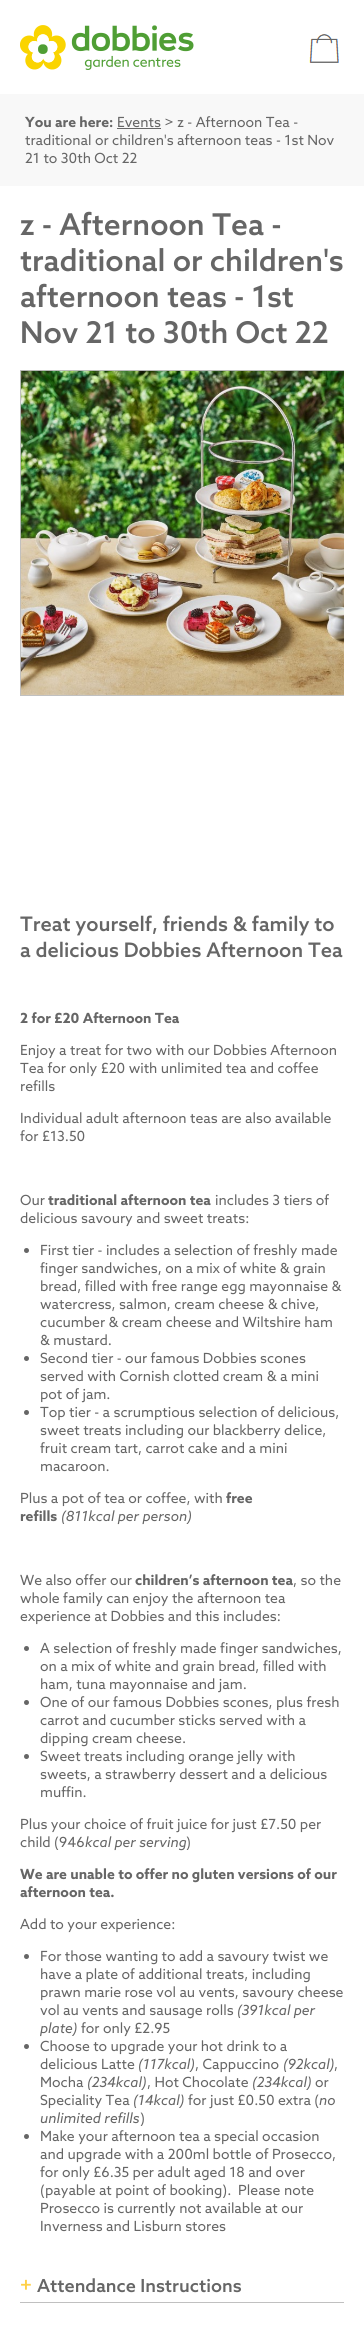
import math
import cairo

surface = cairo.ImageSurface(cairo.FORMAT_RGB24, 364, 2338)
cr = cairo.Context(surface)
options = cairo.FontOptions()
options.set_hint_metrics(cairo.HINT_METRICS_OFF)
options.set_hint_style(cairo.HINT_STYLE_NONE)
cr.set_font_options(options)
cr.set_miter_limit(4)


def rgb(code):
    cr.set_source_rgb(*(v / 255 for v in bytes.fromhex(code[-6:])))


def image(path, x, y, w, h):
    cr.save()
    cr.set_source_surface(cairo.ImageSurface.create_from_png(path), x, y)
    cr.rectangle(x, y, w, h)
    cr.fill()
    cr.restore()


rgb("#ffffff")
cr.paint()
image("img/1.png", 20, 25, 174, 45)
image("img/2.png", 309, 34, 30, 29)
rgb("#f8f8f8")
cr.rectangle(0, 94, 364, 92)
cr.fill()
rgb("#666666")
cr.rectangle(117, 128, 44, 1)
cr.fill()
cr.save()
cr.rectangle(20, 370, 324, 351)
cr.clip()
cr.rectangle(20.5, 370.5, 325, 325)
rgb("#c0c0c0")
cr.set_line_width(1)
cr.stroke()
cr.restore()
image("img/3.png", 20, 370, 324, 325)
cr.arc(26.5, 1250.5, 2.5, 0, 2 * math.pi)
cr.fill()
cr.arc(26.5, 1358.5, 2.5, 0, 2 * math.pi)
cr.fill()
cr.arc(26.5, 1412.5, 2.5, 0, 2 * math.pi)
cr.fill()
cr.arc(26.5, 1648.5, 2.5, 0, 2 * math.pi)
cr.fill()
cr.arc(26.5, 1702.5, 2.5, 0, 2 * math.pi)
cr.fill()
cr.arc(26.5, 1756.5, 2.5, 0, 2 * math.pi)
cr.fill()
cr.arc(26.5, 1956.5, 2.5, 0, 2 * math.pi)
cr.fill()
cr.arc(26.5, 2046.5, 2.5, 0, 2 * math.pi)
cr.fill()
cr.arc(26.5, 2136.5, 2.5, 0, 2 * math.pi)
cr.fill()
rgb("#c0c0c0")
cr.rectangle(20, 2302, 324, 1)
cr.fill()
cr.select_font_face("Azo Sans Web", cairo.FONT_SLANT_NORMAL, cairo.FONT_WEIGHT_BOLD)
cr.set_font_size(14)
rgb("#666666")
cr.move_to(25, 127)
cr.show_text("You are here:")
cr.select_font_face("Azo Sans Web")
for x, y, s in [
    (117, 127, "Events > z - Afternoon Tea -"),
    (25, 145, "traditional or children's afternoon teas - 1st Nov"),
    (25, 163, "21 to 30th Oct 22"),
]:
    cr.move_to(x, y)
    cr.show_text(s)
cr.select_font_face("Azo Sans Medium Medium")
cr.set_font_size(30)
for x, y, s in [
    (20, 235, "z - Afternoon Tea -"),
    (20, 271, "traditional or children's"),
    (20, 307, "afternoon teas - 1st"),
    (20, 343, "Nov 21 to 30th Oct 22"),
]:
    cr.move_to(x, y)
    cr.show_text(s)
cr.set_font_size(20)
cr.move_to(20, 931)
cr.show_text("Treat yourself, friends & family to")
cr.move_to(20, 957)
cr.show_text("a delicious Dobbies Afternoon Tea")
cr.select_font_face("Azo Sans Web", cairo.FONT_SLANT_NORMAL, cairo.FONT_WEIGHT_BOLD)
cr.set_font_size(14)
cr.move_to(20, 1023)
cr.show_text("2 for £20 Afternoon Tea")
cr.select_font_face("Azo Sans Web")
for x, y, s in [
    (20, 1055, "Enjoy a treat for two with our Dobbies Afternoon"),
    (20, 1073, "Tea for only £20 with unlimited tea and coffee"),
    (20, 1091, "refills"),
    (20, 1123, "Individual adult afternoon teas are also available"),
    (20, 1141, "for £13.50"),
    (20, 1205, "Our"),
]:
    cr.move_to(x, y)
    cr.show_text(s)
cr.select_font_face("Azo Sans Web", cairo.FONT_SLANT_NORMAL, cairo.FONT_WEIGHT_BOLD)
cr.move_to(48, 1205)
cr.show_text("traditional afternoon tea")
cr.select_font_face("Azo Sans Web")
for x, y, s in [
    (215, 1205, "includes 3 tiers of"),
    (20, 1223, "delicious savoury and sweet treats:"),
    (40, 1255, "First tier - includes a selection of freshly made"),
    (40, 1273, "finger sandwiches, on a mix of white & grain"),
    (40, 1291, "bread, filled with free range egg mayonnaise &"),
    (40, 1309, "watercress, salmon, cream cheese & chive,"),
    (40, 1327, "cucumber & cream cheese and Wiltshire ham"),
    (40, 1345, "& mustard."),
    (40, 1363, "Second tier - our famous Dobbies scones"),
    (40, 1381, "served with Cornish clotted cream & a mini"),
    (40, 1399, "pot of jam."),
    (40, 1417, "Top tier - a scrumptious selection of delicious,"),
    (40, 1435, "sweet treats including our blackberry delice,"),
    (40, 1453, "fruit cream tart, carrot cake and a mini"),
    (40, 1471, "macaroon."),
    (20, 1503, "Plus a pot of tea or coffee, with"),
]:
    cr.move_to(x, y)
    cr.show_text(s)
cr.select_font_face("Azo Sans Web", cairo.FONT_SLANT_NORMAL, cairo.FONT_WEIGHT_BOLD)
cr.move_to(226, 1503)
cr.show_text("free")
cr.move_to(20, 1521)
cr.show_text("refills")
cr.select_font_face("Azo Sans Web", cairo.FONT_SLANT_ITALIC)
cr.move_to(61, 1521)
cr.show_text("(811kcal per person)")
cr.select_font_face("Azo Sans Web")
cr.move_to(20, 1585)
cr.show_text("We also offer our")
cr.select_font_face("Azo Sans Web", cairo.FONT_SLANT_NORMAL, cairo.FONT_WEIGHT_BOLD)
cr.move_to(135, 1585)
cr.show_text("children’s afternoon tea")
cr.select_font_face("Azo Sans Web")
for x, y, s in [
    (293, 1585, ", so the"),
    (20, 1603, "whole family can enjoy the afternoon tea"),
    (20, 1621, "experience at Dobbies and this includes:"),
    (40, 1653, "A selection of freshly made finger sandwiches,"),
    (40, 1671, "on a mix of white and grain bread, filled with"),
    (40, 1689, "ham, tuna mayonnaise and jam."),
    (40, 1707, "One of our famous Dobbies scones, plus fresh"),
    (40, 1725, "carrot and cucumber sticks served with a"),
    (40, 1743, "dipping cream cheese."),
    (40, 1761, "Sweet treats including orange jelly with"),
    (40, 1779, "sweets, a strawberry dessert and a delicious"),
    (40, 1797, "muffin."),
    (20, 1829, "Plus your choice of fruit juice for just £7.50 per"),
    (20, 1847, "child (946"),
]:
    cr.move_to(x, y)
    cr.show_text(s)
cr.select_font_face("Azo Sans Web", cairo.FONT_SLANT_ITALIC)
cr.move_to(85, 1847)
cr.show_text("kcal per serving")
cr.select_font_face("Azo Sans Web")
cr.move_to(186, 1847)
cr.show_text(")")
cr.select_font_face("Azo Sans Web", cairo.FONT_SLANT_NORMAL, cairo.FONT_WEIGHT_BOLD)
cr.move_to(20, 1879)
cr.show_text("We are unable to offer no gluten versions of our")
cr.move_to(20, 1897)
cr.show_text("afternoon tea.")
cr.select_font_face("Azo Sans Web")
for x, y, s in [
    (20, 1929, "Add to your experience:"),
    (40, 1961, "For those wanting to add a savoury twist we"),
    (40, 1979, "have a plate of additional treats, including"),
    (40, 1997, "prawn marie rose vol au vents, savoury cheese"),
    (40, 2015, "vol au vents and sausage rolls"),
]:
    cr.move_to(x, y)
    cr.show_text(s)
cr.select_font_face("Azo Sans Web", cairo.FONT_SLANT_ITALIC)
cr.move_to(237, 2015)
cr.show_text("(391kcal per")
cr.move_to(40, 2033)
cr.show_text("plate)")
cr.select_font_face("Azo Sans Web")
for x, y, s in [
    (81, 2033, "for only £2.95"),
    (40, 2051, "Choose to upgrade your hot drink to a"),
    (40, 2069, "delicious Latte"),
]:
    cr.move_to(x, y)
    cr.show_text(s)
cr.select_font_face("Azo Sans Web", cairo.FONT_SLANT_ITALIC)
cr.move_to(138, 2069)
cr.show_text("(117kcal)")
cr.select_font_face("Azo Sans Web")
cr.move_to(195, 2069)
cr.show_text(", Cappuccino")
cr.select_font_face("Azo Sans Web", cairo.FONT_SLANT_ITALIC)
cr.move_to(283, 2069)
cr.show_text("(92kcal)")
cr.select_font_face("Azo Sans Web")
cr.move_to(334, 2069)
cr.show_text(",")
cr.move_to(40, 2087)
cr.show_text("Mocha")
cr.select_font_face("Azo Sans Web", cairo.FONT_SLANT_ITALIC)
cr.move_to(87, 2087)
cr.show_text("(234kcal)")
cr.select_font_face("Azo Sans Web")
cr.move_to(147, 2087)
cr.show_text(", Hot Chocolate")
cr.select_font_face("Azo Sans Web", cairo.FONT_SLANT_ITALIC)
cr.move_to(252, 2087)
cr.show_text("(234kcal)")
cr.select_font_face("Azo Sans Web")
cr.move_to(315, 2087)
cr.show_text("or")
cr.move_to(40, 2105)
cr.show_text("Speciality Tea")
cr.select_font_face("Azo Sans Web", cairo.FONT_SLANT_ITALIC)
cr.move_to(133, 2105)
cr.show_text("(14kcal)")
cr.select_font_face("Azo Sans Web")
cr.move_to(188, 2105)
cr.show_text("for just £0.50 extra (")
cr.select_font_face("Azo Sans Web", cairo.FONT_SLANT_ITALIC)
cr.move_to(319, 2105)
cr.show_text("no")
cr.move_to(40, 2123)
cr.show_text("unlimited refills")
cr.select_font_face("Azo Sans Web")
for x, y, s in [
    (140, 2123, ")"),
    (40, 2141, "Make your afternoon tea a special occasion"),
    (40, 2159, "and upgrade with a 200ml bottle of Prosecco,"),
    (40, 2177, "for only £6.35 per adult aged 18 and over"),
    (40, 2195, "(payable at point of booking).  Please note"),
    (40, 2213, "Prosecco is currently not available at our"),
    (40, 2231, "Inverness and Lisburn stores"),
]:
    cr.move_to(x, y)
    cr.show_text(s)
cr.select_font_face("Azo Sans Medium Medium")
cr.set_font_size(20)
rgb("#ffd047")
cr.move_to(20, 2292)
cr.show_text("+")
cr.set_font_size(18)
rgb("#666666")
cr.move_to(37, 2292)
cr.show_text("Attendance Instructions")
surface.write_to_png("page.png")
